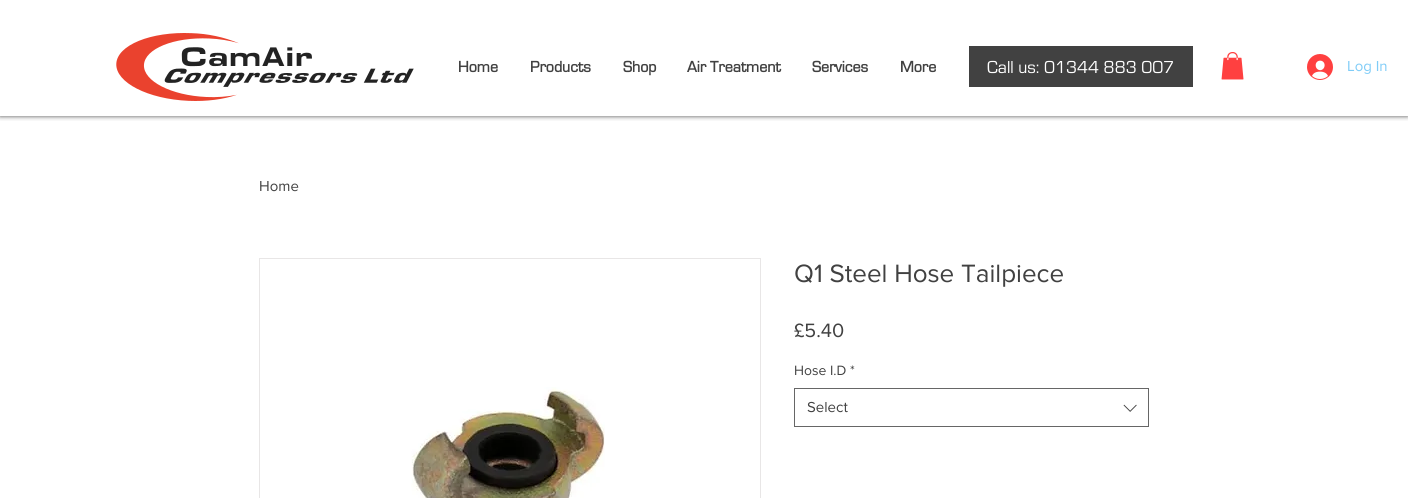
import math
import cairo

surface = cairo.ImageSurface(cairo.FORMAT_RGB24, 1408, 498)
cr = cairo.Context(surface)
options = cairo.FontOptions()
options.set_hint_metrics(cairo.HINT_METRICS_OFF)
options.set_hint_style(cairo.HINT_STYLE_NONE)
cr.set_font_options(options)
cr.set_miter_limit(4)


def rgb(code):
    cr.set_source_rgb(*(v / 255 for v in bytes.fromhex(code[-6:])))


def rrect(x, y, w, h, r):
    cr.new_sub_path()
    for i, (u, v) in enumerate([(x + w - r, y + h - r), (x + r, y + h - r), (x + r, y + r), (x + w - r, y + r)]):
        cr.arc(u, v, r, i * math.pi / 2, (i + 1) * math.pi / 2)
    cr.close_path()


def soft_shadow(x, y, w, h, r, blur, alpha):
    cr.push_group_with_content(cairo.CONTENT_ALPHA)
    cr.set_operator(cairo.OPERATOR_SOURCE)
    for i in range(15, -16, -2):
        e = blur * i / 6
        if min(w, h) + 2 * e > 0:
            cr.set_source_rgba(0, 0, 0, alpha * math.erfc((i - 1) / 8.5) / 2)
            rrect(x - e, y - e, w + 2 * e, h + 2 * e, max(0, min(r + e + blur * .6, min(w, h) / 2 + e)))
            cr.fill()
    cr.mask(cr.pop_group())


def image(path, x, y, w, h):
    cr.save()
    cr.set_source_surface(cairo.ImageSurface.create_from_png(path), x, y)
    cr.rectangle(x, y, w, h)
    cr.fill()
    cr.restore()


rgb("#ffffff")
cr.paint()
cr.save()
cr.rectangle(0, 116, 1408, 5)
cr.clip()
rgb("#000000")
soft_shadow(0, 0, 1408, 116, 0, 2.5, 0.7)
cr.restore()
image("img/1.png", 116, 33, 298, 68)
rgb("#414141")
cr.rectangle(969, 46, 224, 41)
cr.fill()
image("img/2.png", 1221, 52, 23, 28)
image("img/3.png", 1307, 54, 26, 26)
cr.rectangle(259.5, 258.5, 501, 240)
rgb("#e8e6e6")
cr.set_line_width(1)
cr.stroke()
image("img/4.png", 411, 387, 194, 111)
cr.rectangle(794.5, 388.5, 354, 38)
rgb("#666666")
cr.stroke()
image("img/5.png", 1123, 404, 14, 8)
cr.select_font_face("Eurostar", cairo.FONT_SLANT_NORMAL, cairo.FONT_WEIGHT_BOLD)
cr.set_font_size(16)
rgb("#414141")
for x, y, s in [
    (458, 72, "Home"),
    (530, 72, "Products"),
    (623, 72, "Shop"),
    (687, 72, "Air Treatment"),
    (812, 72, "Services"),
    (900, 72, "More"),
]:
    cr.move_to(x, y)
    cr.show_text(s)
cr.select_font_face("Eurostar")
cr.set_font_size(18)
rgb("#ffffff")
cr.move_to(987, 73)
cr.show_text("Call us: 01344 883 007")
cr.select_font_face("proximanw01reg")
cr.set_font_size(15)
rgb("#7fccf7")
cr.move_to(1347, 71)
cr.show_text("Log In")
rgb("#414141")
cr.move_to(259, 191)
cr.show_text("Home")
cr.set_font_size(26)
cr.move_to(794, 282)
cr.show_text("Q1 Steel Hose Tailpiece")
cr.set_font_size(20)
cr.move_to(794, 337)
cr.show_text("£5.40")
cr.set_font_size(14)
cr.move_to(794, 375)
cr.show_text("Hose I.D")
cr.move_to(850, 375)
cr.show_text("*")
cr.set_font_size(15)
cr.move_to(807, 412)
cr.show_text("Select")
surface.write_to_png("page.png")
